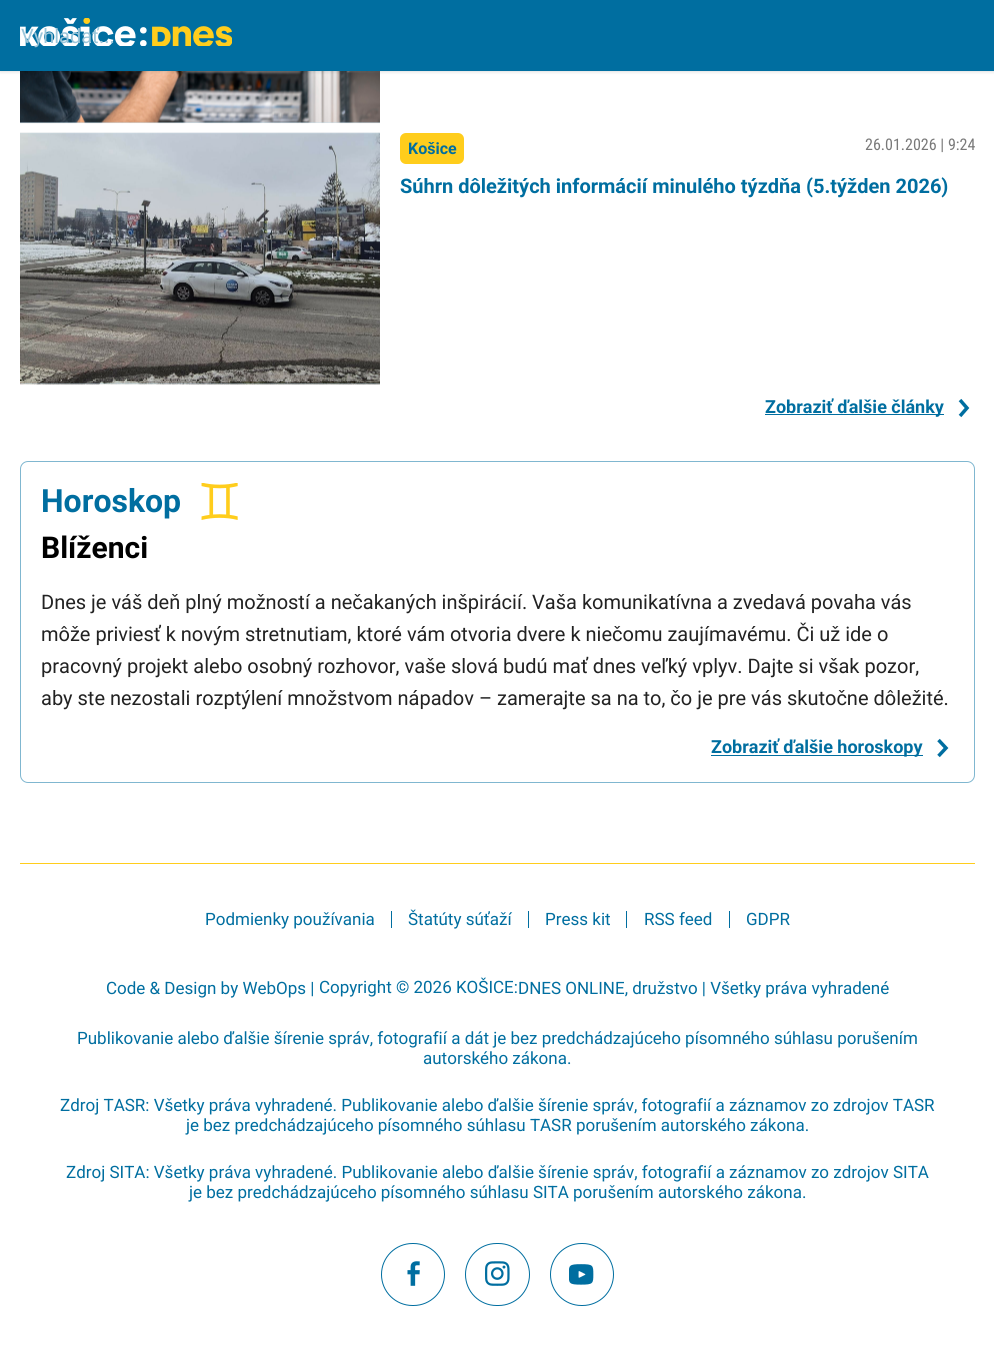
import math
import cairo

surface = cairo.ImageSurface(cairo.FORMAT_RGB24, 994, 1346)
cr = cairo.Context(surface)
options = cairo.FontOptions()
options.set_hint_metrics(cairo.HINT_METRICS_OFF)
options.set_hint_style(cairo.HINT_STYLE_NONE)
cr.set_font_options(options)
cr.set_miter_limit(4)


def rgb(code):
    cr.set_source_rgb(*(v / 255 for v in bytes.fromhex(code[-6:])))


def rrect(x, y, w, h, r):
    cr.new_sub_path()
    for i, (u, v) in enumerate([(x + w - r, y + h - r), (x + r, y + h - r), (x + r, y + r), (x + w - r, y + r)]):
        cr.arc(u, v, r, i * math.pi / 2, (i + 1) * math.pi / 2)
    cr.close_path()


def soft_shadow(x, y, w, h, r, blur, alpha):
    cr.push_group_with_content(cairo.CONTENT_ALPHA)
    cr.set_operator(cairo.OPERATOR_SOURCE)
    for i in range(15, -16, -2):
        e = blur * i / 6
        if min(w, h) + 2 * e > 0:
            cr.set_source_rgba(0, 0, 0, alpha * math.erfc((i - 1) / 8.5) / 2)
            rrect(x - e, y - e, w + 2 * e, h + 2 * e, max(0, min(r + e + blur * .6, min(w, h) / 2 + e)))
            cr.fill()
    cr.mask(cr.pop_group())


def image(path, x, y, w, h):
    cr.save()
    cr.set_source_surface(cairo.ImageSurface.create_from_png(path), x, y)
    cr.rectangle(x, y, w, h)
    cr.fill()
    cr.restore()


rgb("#ffffff")
cr.paint()
rgb("#cce2ec")
cr.rectangle(20, 122, 360, 1)
cr.fill()
image("img/2.png", 20, 71, 360, 53)
rgb("#000000")
soft_shadow(0, 0, 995, 71, 0, 2, 0.2)
rgb("#006ea0")
cr.rectangle(0, 0, 994, 71)
cr.fill()
image("img/1.png", 20, 18, 212, 28)
rgb("#cce2ec")
cr.rectangle(20, 133, 360, 251)
cr.fill()
image("img/3.png", 20, 132, 360, 253)
rgb("#ffcd1c")
rrect(400, 133, 64, 31, 6)
cr.fill()
rgb("#006ea0")
cr.rectangle(765, 414, 179, 1)
cr.fill()
cr.new_path()
cr.move_to(960, 416)
cr.line_to(967, 408)
cr.line_to(960, 400)
cr.set_line_width(3.5)
cr.stroke()
rrect(20.5, 461.5, 954, 321, 7.5)
rgb("#80b7d0")
cr.set_line_width(1)
cr.stroke()
image("img/4.png", 201, 483, 37, 37)
rgb("#006ea0")
cr.rectangle(711, 755, 212, 1)
cr.fill()
cr.new_path()
cr.move_to(938.5, 756)
cr.line_to(946, 748)
cr.line_to(938.5, 740)
cr.set_line_width(3.5)
cr.stroke()
for x, y, w, h, color in [
    (20, 863, 955, 1, "#ffcd1c"),
    (391, 911, 1, 17, "#006ea0"),
    (528, 911, 1, 17, "#006ea0"),
    (626, 911, 1, 17, "#006ea0"),
    (729, 911, 1, 17, "#006ea0"),
]:
    rgb(color)
    cr.rectangle(x, y, w, h)
    cr.fill()
rrect(381.5, 1243.5, 63, 62, 31)
cr.set_line_width(1)
cr.stroke()
image("img/5.png", 407, 1261, 13, 25)
rrect(465.5, 1243.5, 64, 62, 31)
cr.stroke()
image("img/6.png", 485, 1261, 25, 25)
rrect(550.5, 1243.5, 63, 62, 31)
cr.stroke()
image("img/7.png", 569, 1264, 25, 21)
cr.select_font_face("Roboto")
cr.set_font_size(20)
rgb("#9ac5d9")
cr.move_to(21, 43)
cr.show_text("Vyhladať...")
cr.select_font_face("Roboto", cairo.FONT_SLANT_NORMAL, cairo.FONT_WEIGHT_BOLD)
cr.set_font_size(16)
rgb("#006ea0")
cr.move_to(408, 154)
cr.show_text("Košice")
cr.select_font_face("Roboto Condensed")
rgb("#797979")
cr.move_to(865, 150)
cr.show_text("26.01.2026 | 9:24")
cr.select_font_face("Roboto", cairo.FONT_SLANT_NORMAL, cairo.FONT_WEIGHT_BOLD)
cr.set_font_size(20)
rgb("#006ea0")
cr.move_to(400, 193)
cr.show_text("Súhrn dôležitých informácií minulého týzdňa (5.týžden 2026)")
cr.set_font_size(18)
cr.move_to(765, 413)
cr.show_text("Zobraziť ďalšie články")
cr.set_font_size(32)
cr.move_to(41, 512)
cr.show_text("Horoskop")
cr.set_font_size(30)
rgb("#000000")
cr.move_to(41, 558)
cr.show_text("Blíženci")
cr.select_font_face("Roboto")
cr.set_font_size(20)
rgb("#222222")
for x, y, s in [
    (41, 609, "Dnes je váš deň plný možností a nečakaných inšpirácií. Vaša komunikatívna a zvedavá povaha vás"),
    (41, 641, "môže priviesť k novým stretnutiam, ktoré vám otvoria dvere k niečomu zaujímavému. Či už ide o"),
    (41, 673, "pracovný projekt alebo osobný rozhovor, vaše slová budú mať dnes veľký vplyv. Dajte si však pozor,"),
    (41, 705, "aby ste nezostali rozptýlení množstvom nápadov – zamerajte sa na to, čo je pre vás skutočne dôležité."),
]:
    cr.move_to(x, y)
    cr.show_text(s)
cr.select_font_face("Roboto", cairo.FONT_SLANT_NORMAL, cairo.FONT_WEIGHT_BOLD)
cr.set_font_size(18)
rgb("#006ea0")
cr.move_to(711, 753)
cr.show_text("Zobraziť ďalšie horoskopy")
cr.select_font_face("Roboto")
cr.set_font_size(17)
for x, y, s in [
    (205, 925, "Podmienky používania"),
    (408, 925, "Štatúty súťaží"),
    (545, 925, "Press kit"),
    (644, 925, "RSS feed"),
    (746, 925, "GDPR"),
    (106, 994, "Code & Design by WebOps |"),
    (319, 993, "Copyright © 2026 KOŠICE:"),
    (518, 994, "DNES ONLINE, družstvo | Všetky práva vyhradené"),
    (77, 1044, "Publikovanie alebo ďalšie šírenie správ, fotografií a dát je bez predchádzajúceho písomného súhlasu porušením"),
    (423, 1064, "autorského zákona."),
    (60, 1111, "Zdroj TASR: Všetky práva vyhradené. Publikovanie alebo ďalšie šírenie správ, fotografií a záznamov zo zdrojov TASR"),
    (186, 1131, "je bez predchádzajúceho písomného súhlasu TASR porušením autorského zákona."),
    (66, 1178, "Zdroj SITA: Všetky práva vyhradené. Publikovanie alebo ďalšie šírenie správ, fotografií a záznamov zo zdrojov SITA"),
    (189, 1198, "je bez predchádzajúceho písomného súhlasu SITA porušením autorského zákona."),
]:
    cr.move_to(x, y)
    cr.show_text(s)
surface.write_to_png("page.png")
